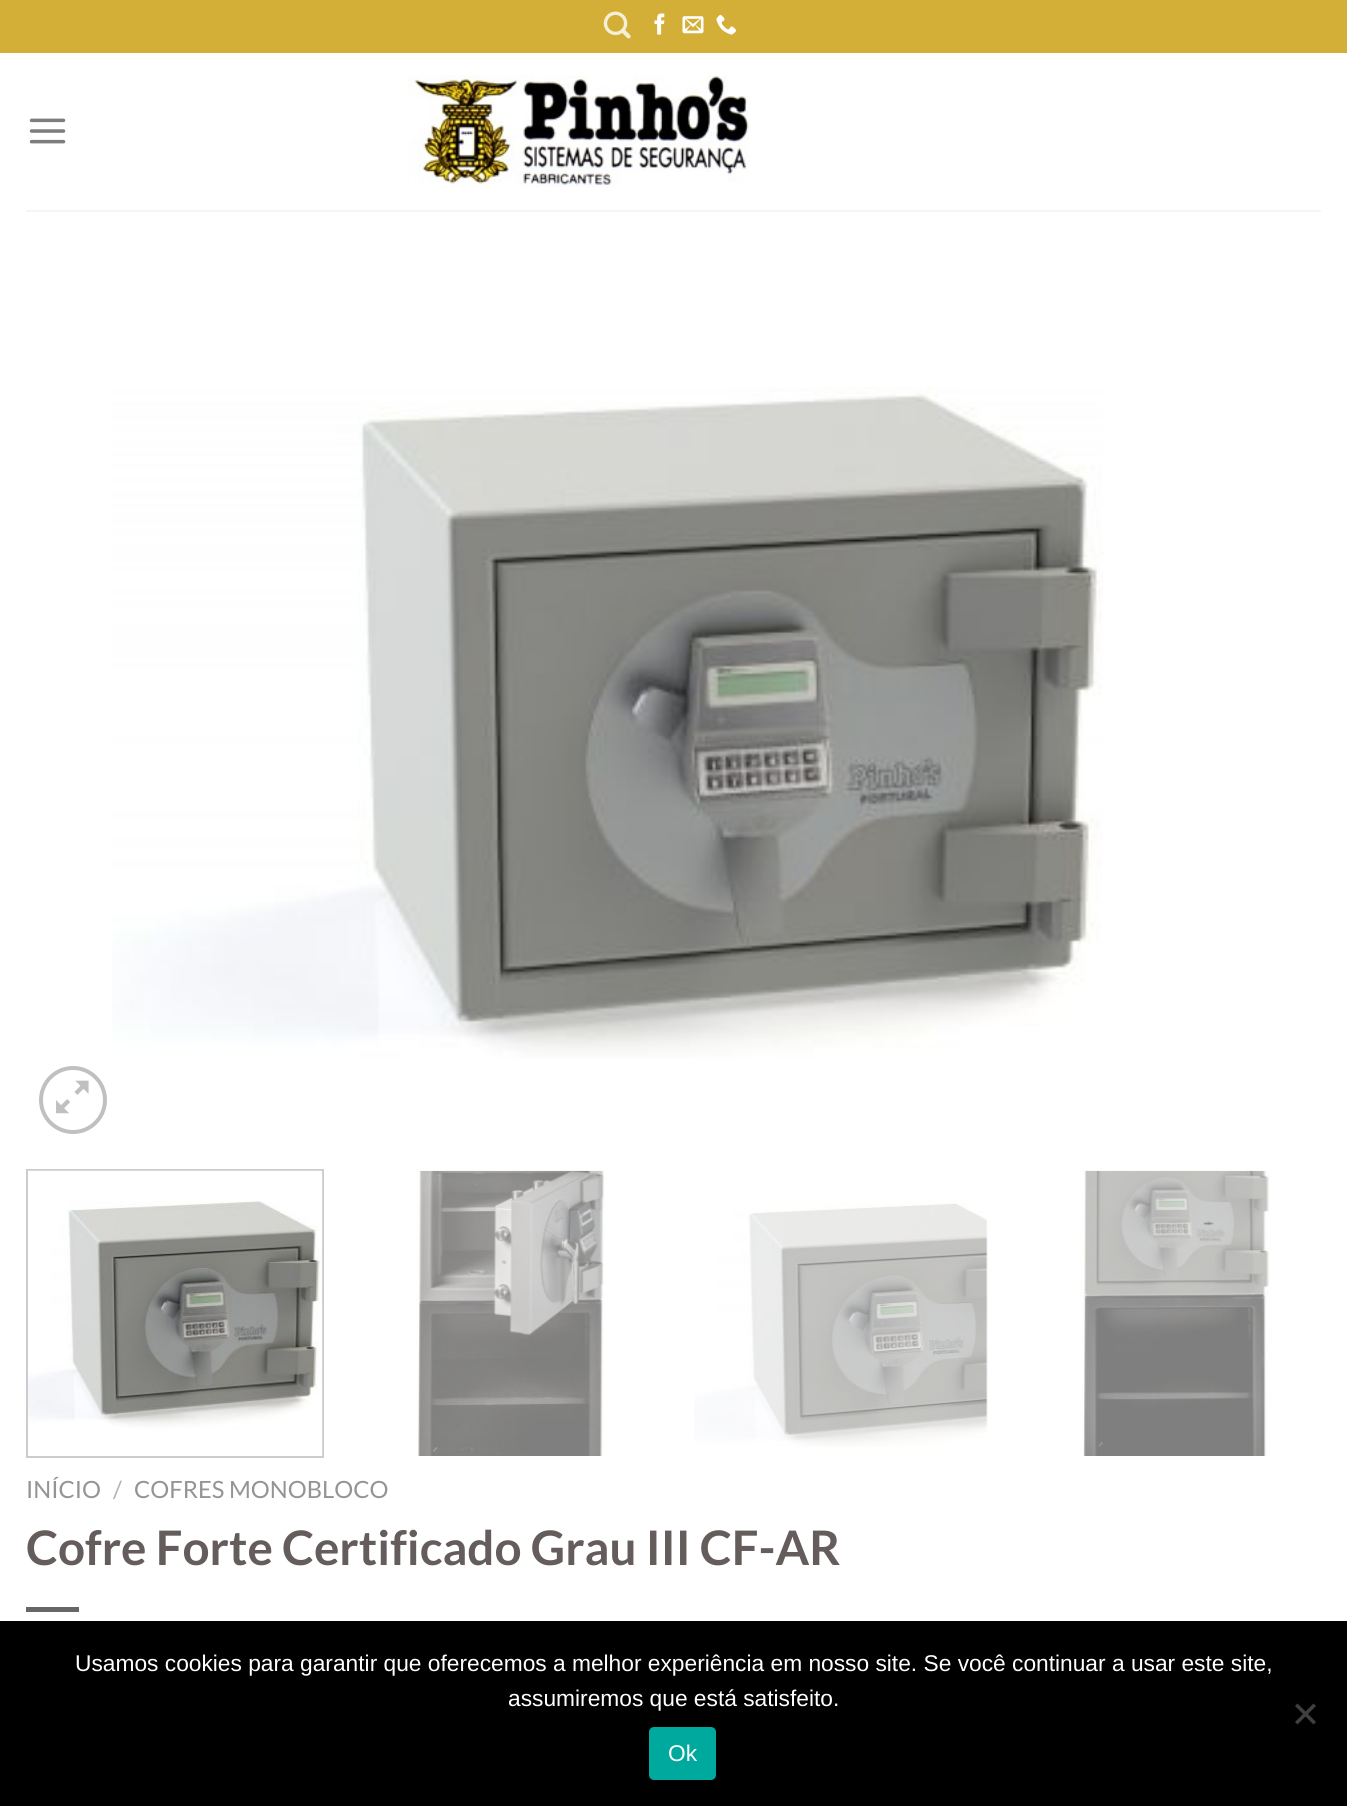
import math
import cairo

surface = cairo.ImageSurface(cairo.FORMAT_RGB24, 1347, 1806)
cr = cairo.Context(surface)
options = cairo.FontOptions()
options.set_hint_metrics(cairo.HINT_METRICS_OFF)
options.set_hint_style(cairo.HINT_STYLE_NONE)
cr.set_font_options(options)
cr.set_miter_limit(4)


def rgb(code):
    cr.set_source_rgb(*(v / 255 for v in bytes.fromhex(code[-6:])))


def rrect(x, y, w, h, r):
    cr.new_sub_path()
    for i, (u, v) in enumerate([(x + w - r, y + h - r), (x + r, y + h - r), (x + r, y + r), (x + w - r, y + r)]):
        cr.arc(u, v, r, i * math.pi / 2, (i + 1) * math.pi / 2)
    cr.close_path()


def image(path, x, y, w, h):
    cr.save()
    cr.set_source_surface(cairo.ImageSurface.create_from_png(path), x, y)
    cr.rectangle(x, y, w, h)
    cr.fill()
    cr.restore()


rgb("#ffffff")
cr.paint()
rgb("#d4af37")
cr.rectangle(0, 0, 1347, 53)
cr.fill()
image("img/1.png", 603, 11, 28, 28)
image("img/2.png", 654, 13, 11, 22)
image("img/3.png", 682, 16, 22, 18)
image("img/4.png", 716, 14, 21, 21)
image("img/5.png", 29, 118, 37, 26)
image("img/6.png", 408, 75, 341, 112)
rgb("#f5f5f5")
cr.rectangle(26, 210, 1295, 2)
cr.fill()
image("img/7.png", 112, 387, 991, 672)
cr.arc(73, 1100, 32, 0, 2 * math.pi)
rgb("#c0c0c0")
cr.set_line_width(4)
cr.stroke()
image("img/8.png", 56, 1080, 33, 34)
cr.rectangle(27, 1170, 296, 287)
rgb("#cccccc")
cr.set_line_width(2)
cr.stroke()
image("img/9.png", 28, 1170, 295, 286)
image("img/10.png", 415, 1170, 190, 286)
image("img/11.png", 694, 1203, 294, 244)
image("img/12.png", 1080, 1170, 190, 286)
rgb("#666666")
cr.rectangle(26, 1607, 53, 5)
cr.fill()
rgb("#000000")
cr.rectangle(0, 1621, 1347, 185)
cr.fill()
rgb("#404040")
cr.new_path()
cr.move_to(1313.5, 1703.5)
cr.line_to(1316, 1706)
cr.line_to(1297.5, 1724.5)
cr.line_to(1295, 1722)
cr.close_path()
cr.fill()
cr.new_path()
cr.move_to(1295, 1706)
cr.line_to(1297.5, 1703.5)
cr.line_to(1316, 1722)
cr.line_to(1313.5, 1724.5)
cr.close_path()
cr.fill()
rgb("#00a99d")
rrect(649, 1727, 67, 53, 5)
cr.fill()
cr.select_font_face("Lato")
cr.set_font_size(23.75)
rgb("#949494")
cr.move_to(26, 1498)
cr.show_text("INÍCIO")
rgb("#b2b2b2")
cr.move_to(113, 1498)
cr.show_text("/")
rgb("#949494")
cr.move_to(134, 1498)
cr.show_text("COFRES MONOBLOCO")
cr.select_font_face("Lato", cairo.FONT_SLANT_NORMAL, cairo.FONT_WEIGHT_BOLD)
cr.set_font_size(47.6)
rgb("#655c5c")
cr.move_to(26, 1565)
cr.show_text("Cofre Forte Certificado Grau III CF-AR")
cr.select_font_face("Liberation Sans")
cr.set_font_size(22.75)
rgb("#ffffff")
for x, y, s in [
    (75, 1671, "Usamos cookies para garantir que oferecemos a melhor experiência em nosso site. Se você continuar a usar este site,"),
    (508, 1706, "assumiremos que está satisfeito."),
    (668, 1761, "Ok"),
]:
    cr.move_to(x, y)
    cr.show_text(s)
surface.write_to_png("page.png")
